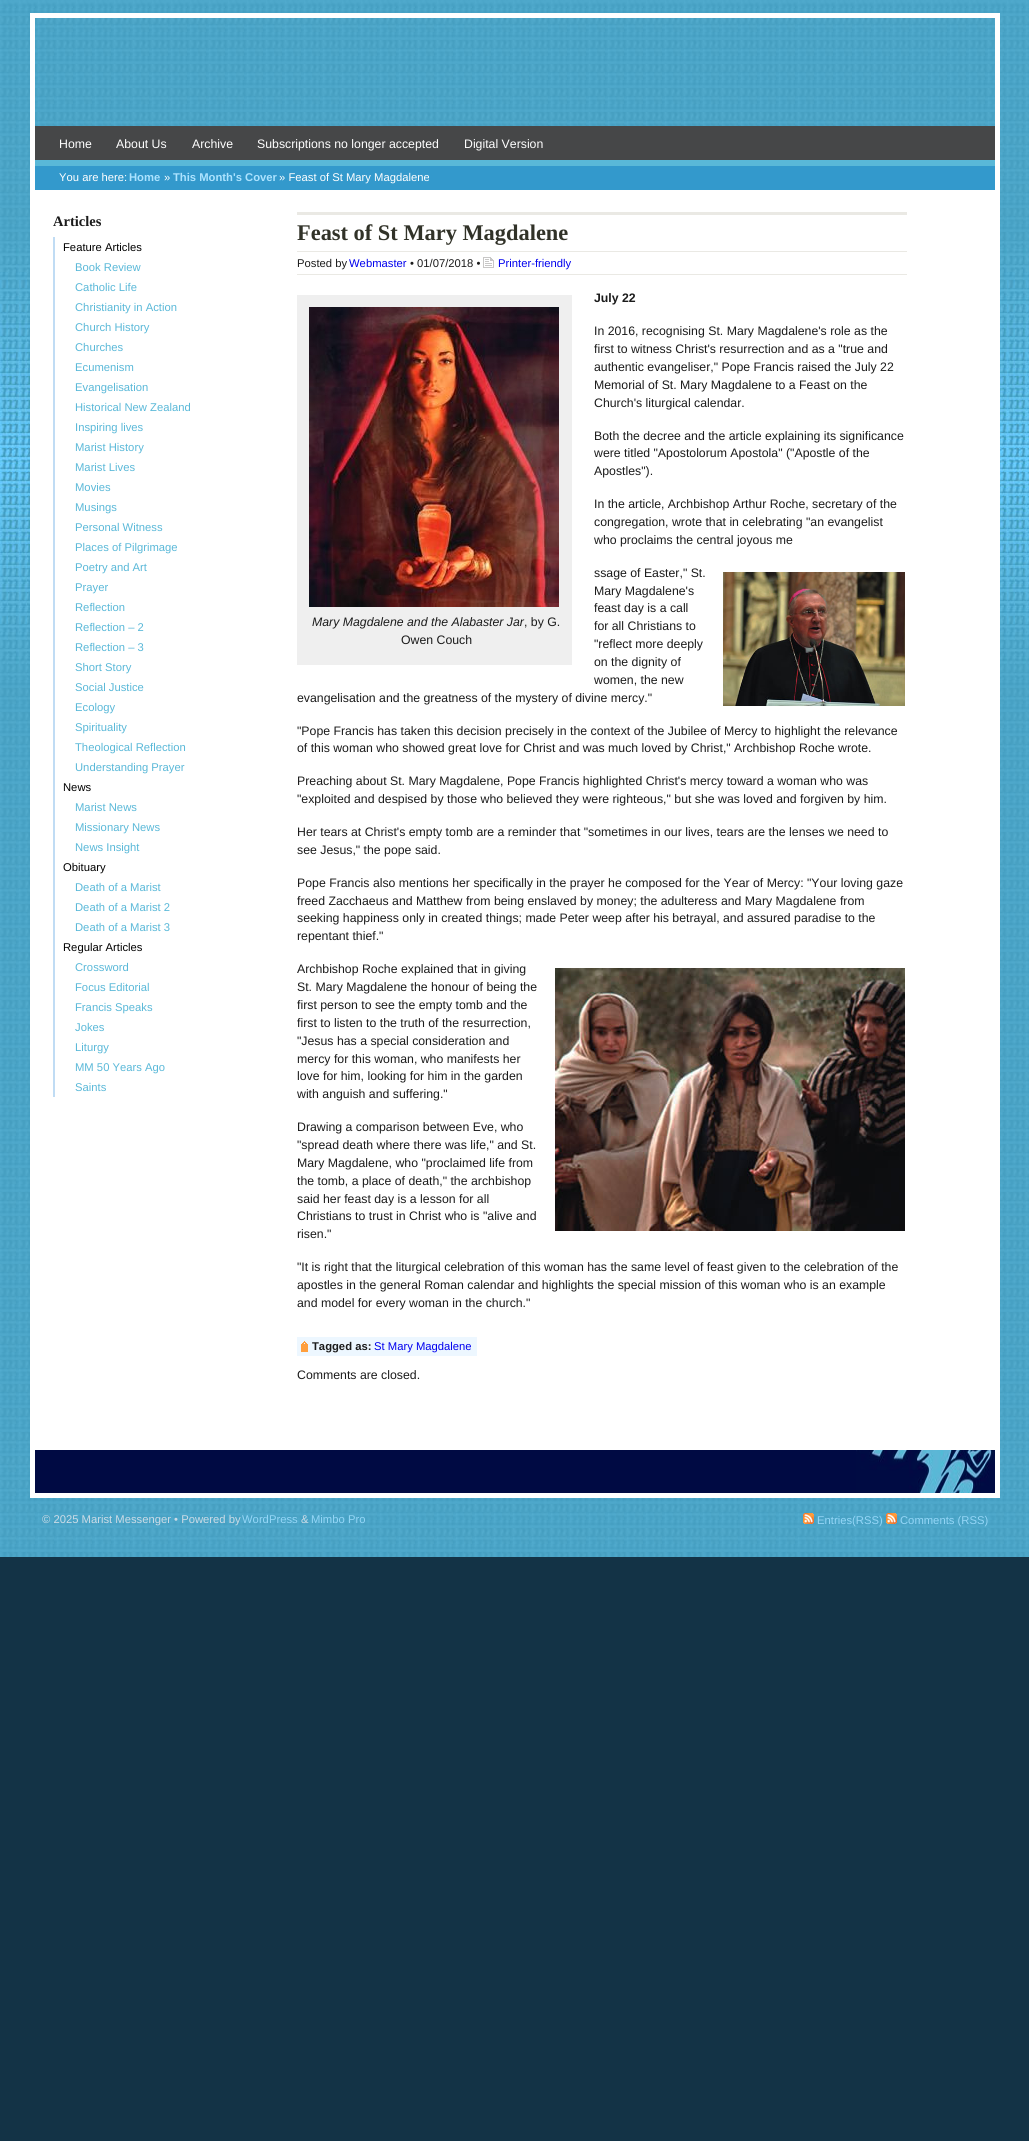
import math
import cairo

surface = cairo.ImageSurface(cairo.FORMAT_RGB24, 1029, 2141)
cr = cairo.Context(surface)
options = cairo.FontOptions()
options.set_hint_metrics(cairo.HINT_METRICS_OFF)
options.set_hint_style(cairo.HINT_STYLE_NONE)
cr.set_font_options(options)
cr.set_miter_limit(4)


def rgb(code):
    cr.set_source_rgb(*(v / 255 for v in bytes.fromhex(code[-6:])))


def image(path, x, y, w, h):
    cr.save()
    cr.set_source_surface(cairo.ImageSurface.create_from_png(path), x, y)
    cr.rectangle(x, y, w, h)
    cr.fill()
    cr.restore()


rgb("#133346")
cr.paint()
image("img/1.png", 0, 0, 1029, 1557)
cr.rectangle(32.5, 15.5, 965, 1480)
rgb("#ffffff")
cr.set_line_width(5)
cr.stroke()
for x, y, w, h, color in [
    (35, 126, 960, 34, "#464748"),
    (35, 160, 960, 6, "#59b8d8"),
    (35, 166, 960, 24, "#3399cc"),
    (35, 190, 960, 1260, "#ffffff"),
    (53, 237, 2, 860, "#c0dcf4"),
    (297, 212, 610, 3, "#eae9e4"),
    (297, 251, 610, 1, "#eae9e4"),
    (297, 274, 610, 1, "#eae9e4"),
]:
    rgb(color)
    cr.rectangle(x, y, w, h)
    cr.fill()
image("img/2.png", 483, 257, 11, 11)
image("img/3.png", 723, 572, 182, 134)
rgb("#efefef")
cr.rectangle(297, 295, 275, 370)
cr.fill()
image("img/4.png", 309, 307, 250, 300)
image("img/5.png", 555, 968, 350, 263)
rgb("#edf7ff")
cr.rectangle(297, 1337, 180, 19)
cr.fill()
image("img/6.png", 301, 1341, 7, 11)
rgb("#000a43")
cr.rectangle(35, 1450, 821, 43)
cr.fill()
image("img/7.png", 856, 1450, 139, 43)
image("img/8.png", 803, 1513, 11, 11)
image("img/9.png", 886, 1513, 11, 11)
cr.select_font_face("Liberation Sans")
cr.set_font_size(12.3)
rgb("#ffffff")
for x, y, s in [
    (59, 148, "Home"),
    (116, 148, "About Us"),
    (192, 148, "Archive"),
    (257, 148, "Subscriptions no longer accepted"),
    (464, 148, "Digital Version"),
]:
    cr.move_to(x, y)
    cr.show_text(s)
cr.set_font_size(11.25)
cr.move_to(59, 181)
cr.show_text("You are here:")
cr.select_font_face("Liberation Sans", cairo.FONT_SLANT_NORMAL, cairo.FONT_WEIGHT_BOLD)
rgb("#ace3ff")
cr.move_to(129, 181)
cr.show_text("Home")
cr.select_font_face("Liberation Sans")
rgb("#ffffff")
cr.move_to(164, 181)
cr.show_text("»")
cr.select_font_face("Liberation Sans", cairo.FONT_SLANT_NORMAL, cairo.FONT_WEIGHT_BOLD)
rgb("#ace3ff")
cr.move_to(173, 181)
cr.show_text("This Month's Cover")
cr.select_font_face("Liberation Sans")
rgb("#ffffff")
cr.move_to(279, 181)
cr.show_text("» Feast of St Mary Magdalene")
cr.select_font_face("Liberation Serif", cairo.FONT_SLANT_NORMAL, cairo.FONT_WEIGHT_BOLD)
cr.set_font_size(14.5)
rgb("#1b1b1b")
cr.move_to(53, 226)
cr.show_text("Articles")
cr.select_font_face("Liberation Sans")
cr.set_font_size(11.25)
rgb("#000000")
cr.move_to(63, 251)
cr.show_text("Feature Articles")
rgb("#59b8d8")
for x, y, s in [
    (75, 271, "Book Review"),
    (75, 291, "Catholic Life"),
    (75, 311, "Christianity in Action"),
    (75, 331, "Church History"),
    (75, 351, "Churches"),
    (75, 371, "Ecumenism"),
    (75, 391, "Evangelisation"),
    (75, 411, "Historical New Zealand"),
    (75, 431, "Inspiring lives"),
    (75, 451, "Marist History"),
    (75, 471, "Marist Lives"),
    (75, 491, "Movies"),
    (75, 511, "Musings"),
    (75, 531, "Personal Witness"),
    (75, 551, "Places of Pilgrimage"),
    (75, 571, "Poetry and Art"),
    (75, 591, "Prayer"),
    (75, 611, "Reflection"),
    (75, 631, "Reflection – 2"),
    (75, 651, "Reflection – 3"),
    (75, 671, "Short Story"),
    (75, 691, "Social Justice"),
    (75, 711, "Ecology"),
    (75, 731, "Spirituality"),
    (75, 751, "Theological Reflection"),
    (75, 771, "Understanding Prayer"),
]:
    cr.move_to(x, y)
    cr.show_text(s)
rgb("#000000")
cr.move_to(63, 791)
cr.show_text("News")
rgb("#59b8d8")
for x, y, s in [
    (75, 811, "Marist News"),
    (75, 831, "Missionary News"),
    (75, 851, "News Insight"),
]:
    cr.move_to(x, y)
    cr.show_text(s)
rgb("#000000")
cr.move_to(63, 871)
cr.show_text("Obituary")
rgb("#59b8d8")
for x, y, s in [
    (75, 891, "Death of a Marist"),
    (75, 911, "Death of a Marist 2"),
    (75, 931, "Death of a Marist 3"),
]:
    cr.move_to(x, y)
    cr.show_text(s)
rgb("#000000")
cr.move_to(63, 951)
cr.show_text("Regular Articles")
rgb("#59b8d8")
for x, y, s in [
    (75, 971, "Crossword"),
    (75, 991, "Focus Editorial"),
    (75, 1011, "Francis Speaks"),
    (75, 1031, "Jokes"),
    (75, 1051, "Liturgy"),
    (75, 1071, "MM 50 Years Ago"),
    (75, 1091, "Saints"),
]:
    cr.move_to(x, y)
    cr.show_text(s)
cr.select_font_face("Liberation Serif", cairo.FONT_SLANT_NORMAL, cairo.FONT_WEIGHT_BOLD)
cr.set_font_size(22.4)
rgb("#313228")
cr.move_to(297, 240)
cr.show_text("Feast of St Mary Magdalene")
cr.select_font_face("Liberation Sans")
cr.set_font_size(11.25)
rgb("#1b1b1b")
cr.move_to(297, 267)
cr.show_text("Posted by")
rgb("#0000ee")
cr.move_to(349, 267)
cr.show_text("Webmaster")
rgb("#1b1b1b")
cr.move_to(410, 267)
cr.show_text("• 01/07/2018 •")
rgb("#0000ee")
cr.move_to(498, 267)
cr.show_text("Printer-friendly")
cr.select_font_face("Liberation Sans", cairo.FONT_SLANT_NORMAL, cairo.FONT_WEIGHT_BOLD)
cr.set_font_size(12.3)
rgb("#1b1b1b")
cr.move_to(594, 302)
cr.show_text("July 22")
cr.select_font_face("Liberation Sans")
for x, y, s in [
    (594, 335, "In 2016, recognising St. Mary Magdalene's role as the"),
    (594, 353, "first to witness Christ's resurrection and as a \"true and"),
    (594, 371, "authentic evangeliser,\" Pope Francis raised the July 22"),
    (594, 389, "Memorial of St. Mary Magdalene to a Feast on the"),
    (594, 407, "Church's liturgical calendar."),
    (594, 440, "Both the decree and the article explaining its significance"),
    (594, 457, "were titled \"Apostolorum Apostola\" (\"Apostle of the"),
    (594, 475, "Apostles\")."),
    (594, 508, "In the article, Archbishop Arthur Roche, secretary of the"),
    (594, 526, "congregation, wrote that in celebrating \"an evangelist"),
    (594, 544, "who proclaims the central joyous me"),
    (594, 577, "ssage of Easter,\" St."),
    (594, 595, "Mary Magdalene's"),
    (594, 612, "feast day is a call"),
    (594, 630, "for all Christians to"),
    (594, 648, "\"reflect more deeply"),
    (594, 666, "on the dignity of"),
    (594, 684, "women, the new"),
    (297, 702, "evangelisation and the greatness of the mystery of divine mercy.\""),
]:
    cr.move_to(x, y)
    cr.show_text(s)
cr.select_font_face("Liberation Sans", cairo.FONT_SLANT_ITALIC)
cr.move_to(312, 626)
cr.show_text("Mary Magdalene and the Alabaster Jar")
cr.select_font_face("Liberation Sans")
for x, y, s in [
    (524, 626, ", by G."),
    (401, 644, "Owen Couch"),
    (297, 735, "\"Pope Francis has taken this decision precisely in the context of the Jubilee of Mercy to highlight the relevance"),
    (297, 752, "of this woman who showed great love for Christ and was much loved by Christ,\" Archbishop Roche wrote."),
    (297, 785, "Preaching about St. Mary Magdalene, Pope Francis highlighted Christ's mercy toward a woman who was"),
    (297, 803, "\"exploited and despised by those who believed they were righteous,\" but she was loved and forgiven by him."),
    (297, 836, "Her tears at Christ's empty tomb are a reminder that \"sometimes in our lives, tears are the lenses we need to"),
    (297, 854, "see Jesus,\" the pope said."),
    (297, 887, "Pope Francis also mentions her specifically in the prayer he composed for the Year of Mercy: \"Your loving gaze"),
    (297, 905, "freed Zacchaeus and Matthew from being enslaved by money; the adulteress and Mary Magdalene from"),
    (297, 922, "seeking happiness only in created things; made Peter weep after his betrayal, and assured paradise to the"),
    (297, 940, "repentant thief.\""),
    (297, 973, "Archbishop Roche explained that in giving"),
    (297, 991, "St. Mary Magdalene the honour of being the"),
    (297, 1009, "first person to see the empty tomb and the"),
    (297, 1027, "first to listen to the truth of the resurrection,"),
    (297, 1045, "\"Jesus has a special consideration and"),
    (297, 1063, "mercy for this woman, who manifests her"),
    (297, 1080, "love for him, looking for him in the garden"),
    (297, 1098, "with anguish and suffering.\""),
    (297, 1131, "Drawing a comparison between Eve, who"),
    (297, 1149, "\"spread death where there was life,\" and St."),
    (297, 1167, "Mary Magdalene, who \"proclaimed life from"),
    (297, 1185, "the tomb, a place of death,\" the archbishop"),
    (297, 1203, "said her feast day is a lesson for all"),
    (297, 1220, "Christians to trust in Christ who is \"alive and"),
    (297, 1238, "risen.\""),
    (297, 1271, "\"It is right that the liturgical celebration of this woman has the same level of feast given to the celebration of the"),
    (297, 1289, "apostles in the general Roman calendar and highlights the special mission of this woman who is an example"),
    (297, 1307, "and model for every woman in the church.\""),
]:
    cr.move_to(x, y)
    cr.show_text(s)
cr.select_font_face("Liberation Sans", cairo.FONT_SLANT_NORMAL, cairo.FONT_WEIGHT_BOLD)
cr.set_font_size(11.25)
cr.move_to(312, 1350)
cr.show_text("Tagged as:")
cr.select_font_face("Liberation Sans")
rgb("#0000ee")
cr.move_to(374, 1350)
cr.show_text("St Mary Magdalene")
cr.set_font_size(12.3)
rgb("#1b1b1b")
cr.move_to(297, 1379)
cr.show_text("Comments are closed.")
cr.set_font_size(11.25)
rgb("#ccdbe6")
cr.move_to(42, 1523)
cr.show_text("© 2025 Marist Messenger • Powered by")
rgb("#94d6f7")
cr.move_to(242, 1523)
cr.show_text("WordPress")
rgb("#ccdbe6")
cr.move_to(301, 1523)
cr.show_text("&")
rgb("#94d6f7")
for x, y, s in [
    (311, 1523, "Mimbo Pro"),
    (817, 1524, "Entries(RSS)"),
    (900, 1524, "Comments (RSS)"),
]:
    cr.move_to(x, y)
    cr.show_text(s)
surface.write_to_png("page.png")
